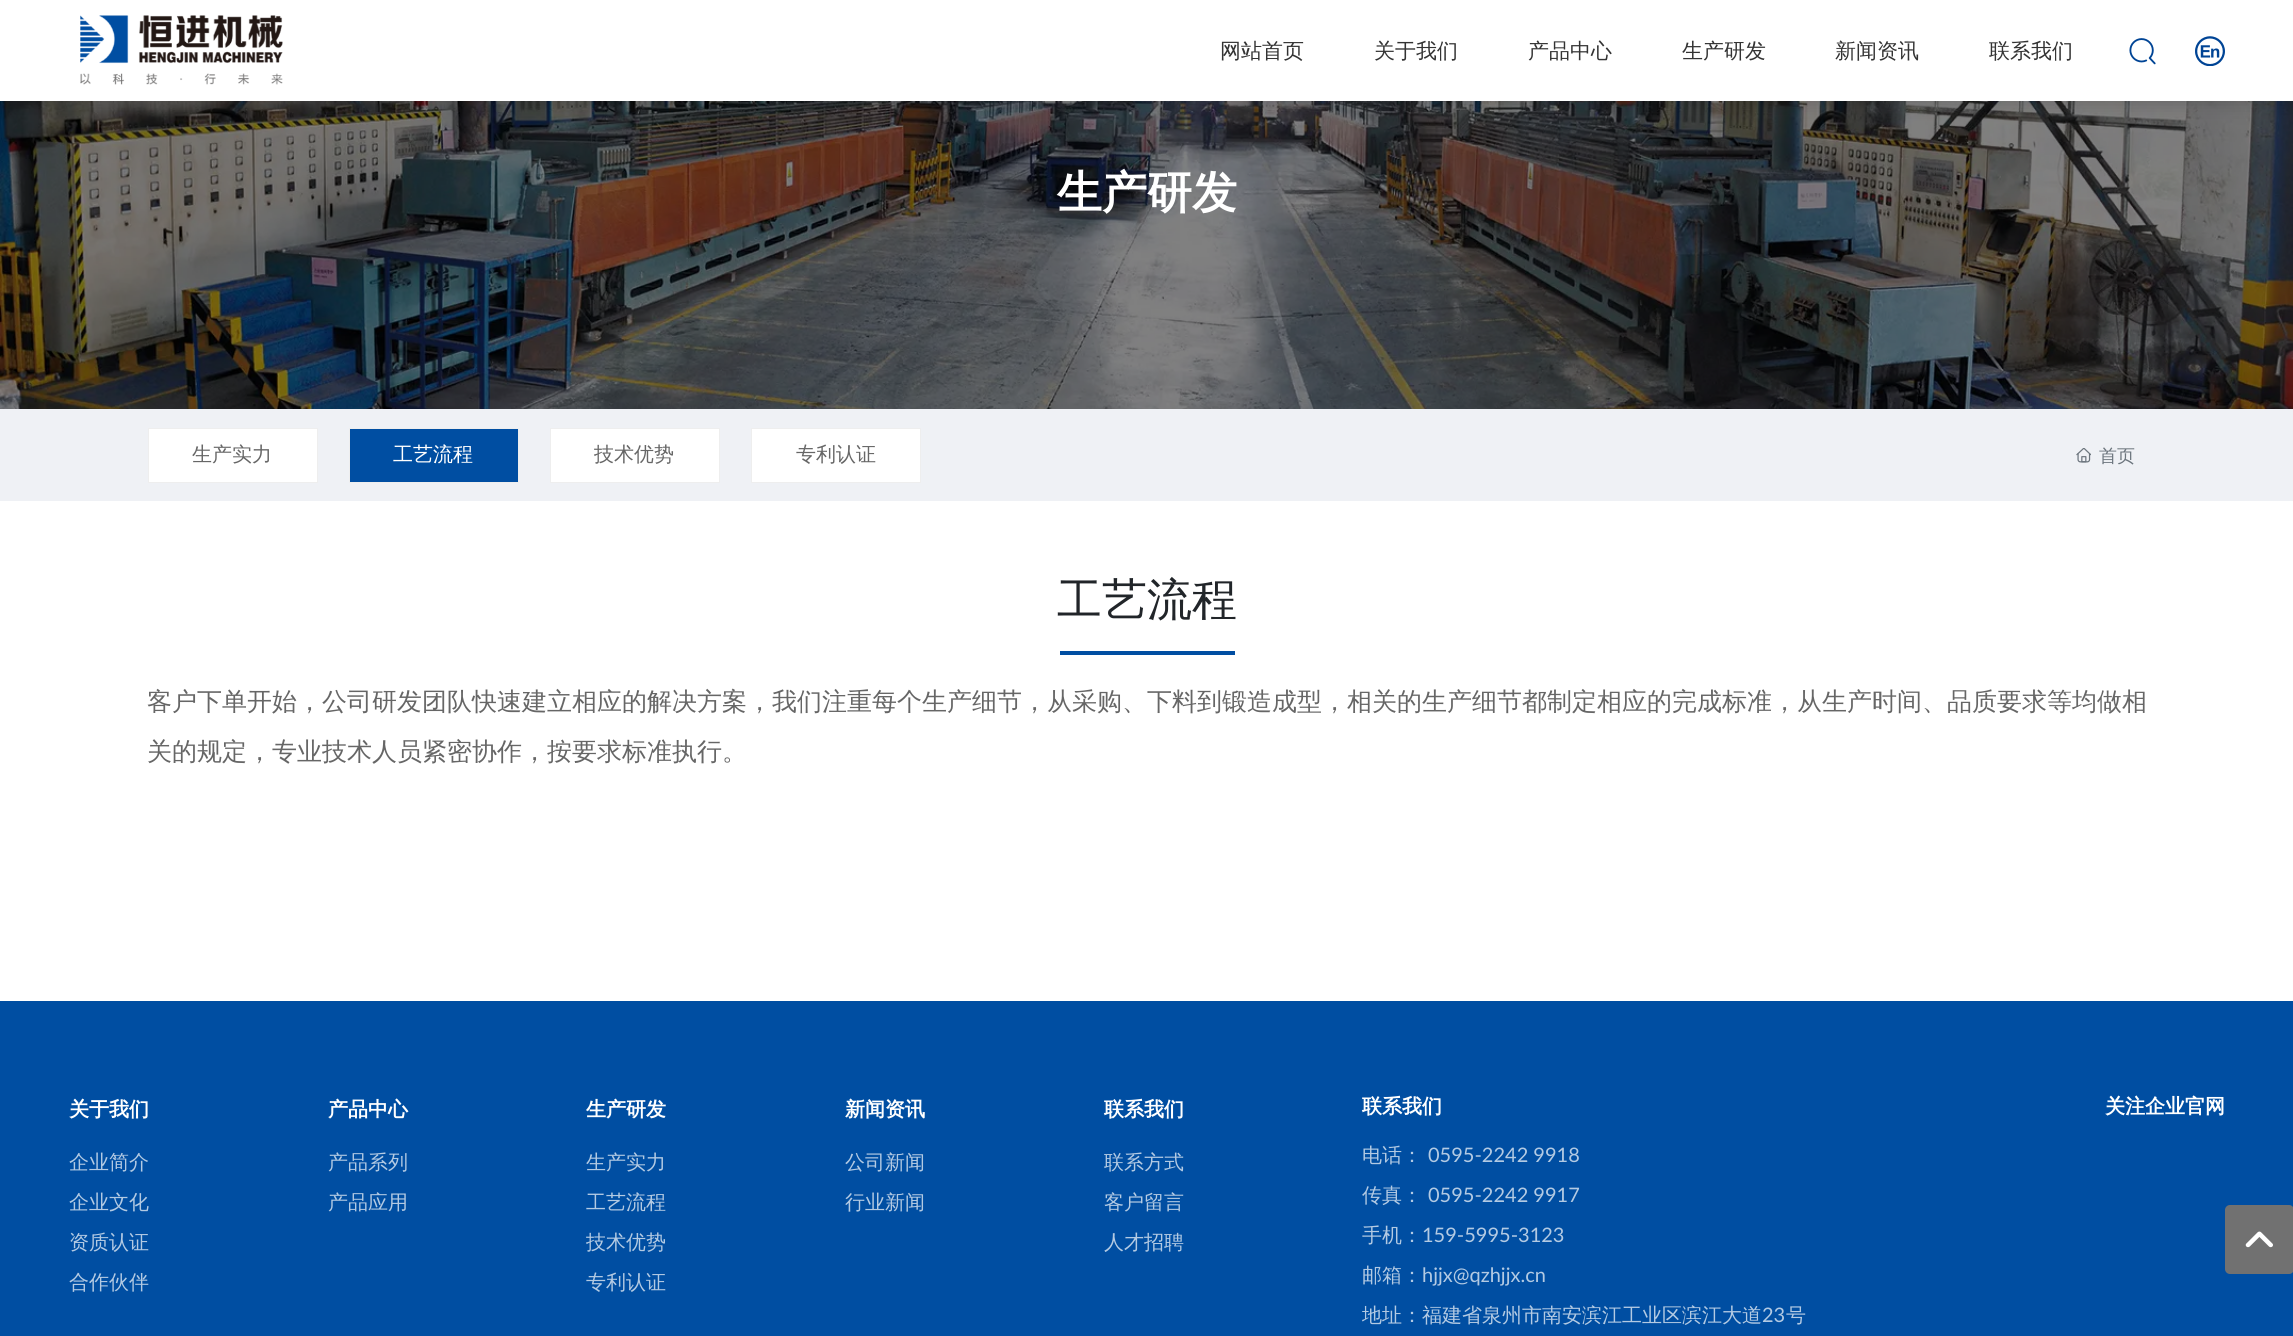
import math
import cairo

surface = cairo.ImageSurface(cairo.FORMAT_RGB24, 2293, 1336)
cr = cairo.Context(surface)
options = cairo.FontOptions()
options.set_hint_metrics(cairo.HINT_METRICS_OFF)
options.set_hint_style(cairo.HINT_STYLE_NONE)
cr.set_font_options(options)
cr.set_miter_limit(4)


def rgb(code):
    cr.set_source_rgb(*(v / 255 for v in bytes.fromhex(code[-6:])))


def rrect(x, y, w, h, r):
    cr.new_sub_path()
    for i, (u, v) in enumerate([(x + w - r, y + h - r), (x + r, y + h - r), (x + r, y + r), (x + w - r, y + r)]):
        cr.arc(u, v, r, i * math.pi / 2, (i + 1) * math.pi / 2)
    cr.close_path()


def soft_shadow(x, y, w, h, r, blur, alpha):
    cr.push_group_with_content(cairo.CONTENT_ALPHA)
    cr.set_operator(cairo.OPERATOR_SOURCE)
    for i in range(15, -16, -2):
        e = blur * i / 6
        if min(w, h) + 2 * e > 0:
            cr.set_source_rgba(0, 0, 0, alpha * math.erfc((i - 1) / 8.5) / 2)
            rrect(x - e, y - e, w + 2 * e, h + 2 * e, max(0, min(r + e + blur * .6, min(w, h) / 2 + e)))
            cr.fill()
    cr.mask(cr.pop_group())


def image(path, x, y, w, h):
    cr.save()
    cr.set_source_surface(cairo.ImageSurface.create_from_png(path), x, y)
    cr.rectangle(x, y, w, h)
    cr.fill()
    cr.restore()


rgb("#ffffff")
cr.paint()
rgb("#000000")
cr.rectangle(0, 101, 2293, 308)
cr.fill()
image("img/4.png", 0, 101, 2293, 308)
rgb("#000000")
soft_shadow(0, 0, 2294, 101, 0, 9.5, 0.2)
rgb("#ffffff")
cr.rectangle(0, 0, 2293, 101)
cr.fill()
image("img/1.png", 80, 15, 203, 70)
image("img/2.png", 2129, 38, 27, 27)
image("img/3.png", 2195, 36, 30, 30)
rgb("#eff1f5")
cr.rectangle(0, 409, 2293, 92)
cr.fill()
rgb("#ffffff")
cr.rectangle(148.5, 428.5, 169, 54)
cr.fill_preserve()
rgb("#eeeeee")
cr.set_line_width(1)
cr.stroke()
rgb("#004ea2")
cr.rectangle(349.5, 428.5, 169, 54)
cr.fill_preserve()
rgb("#eeeeee")
cr.stroke()
rgb("#ffffff")
cr.rectangle(550.5, 428.5, 169, 54)
cr.fill_preserve()
rgb("#eeeeee")
cr.stroke()
rgb("#ffffff")
cr.rectangle(751.5, 428.5, 169, 54)
cr.fill_preserve()
rgb("#eeeeee")
cr.stroke()
image("img/5.png", 2076, 448, 15, 15)
rgb("#004ea2")
cr.rectangle(1060, 651, 175, 4)
cr.fill()
cr.rectangle(0, 1001, 2293, 335)
cr.fill()
rgb("#717171")
rrect(2225, 1205, 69, 69, 5)
cr.fill()
image("img/6.png", 2245, 1231, 28, 17)
cr.select_font_face("WenQuanYi Zen Hei Medium")
cr.set_font_size(21)
rgb("#333333")
for x, y, s in [
    (1220, 58, "网站首页"),
    (1374, 58, "关于我们"),
    (1528, 58, "产品中心"),
    (1682, 58, "生产研发"),
    (1835, 58, "新闻资讯"),
    (1989, 58, "联系我们"),
]:
    cr.move_to(x, y)
    cr.show_text(s)
cr.select_font_face("WenQuanYi Zen Hei", cairo.FONT_SLANT_NORMAL, cairo.FONT_WEIGHT_BOLD)
cr.set_font_size(45)
rgb("#ffffff")
cr.move_to(1057, 208)
cr.show_text("生产研发")
cr.select_font_face("WenQuanYi Zen Hei Medium")
cr.set_font_size(20)
rgb("#666666")
cr.move_to(192, 461)
cr.show_text("生产实力")
rgb("#ffffff")
cr.move_to(393, 461)
cr.show_text("工艺流程")
rgb("#666666")
cr.move_to(594, 461)
cr.show_text("技术优势")
cr.move_to(796, 461)
cr.show_text("专利认证")
cr.set_font_size(18)
rgb("#6c757d")
cr.move_to(2099, 462)
cr.show_text("首页")
cr.set_font_size(45)
rgb("#212529")
cr.move_to(1057, 615)
cr.show_text("工艺流程")
cr.set_font_size(25)
rgb("#666666")
cr.move_to(147, 710)
cr.show_text("客户下单开始，公司研发团队快速建立相应的解决方案，我们注重每个生产细节，从采购、下料到锻造成型，相关的生产细节都制定相应的完成标准，从生产时间、品质要求等均做相")
cr.move_to(147, 760)
cr.show_text("关的规定，专业技术人员紧密协作，按要求标准执行。")
cr.select_font_face("WenQuanYi Zen Hei", cairo.FONT_SLANT_NORMAL, cairo.FONT_WEIGHT_BOLD)
cr.set_font_size(20)
rgb("#ffffff")
cr.move_to(69, 1116)
cr.show_text("关于我们")
cr.select_font_face("WenQuanYi Zen Hei Medium")
rgb("#b3cae3")
for x, y, s in [
    (69, 1169, "企业简介"),
    (69, 1209, "企业文化"),
    (69, 1249, "资质认证"),
    (69, 1289, "合作伙伴"),
]:
    cr.move_to(x, y)
    cr.show_text(s)
cr.select_font_face("WenQuanYi Zen Hei", cairo.FONT_SLANT_NORMAL, cairo.FONT_WEIGHT_BOLD)
rgb("#ffffff")
cr.move_to(328, 1116)
cr.show_text("产品中心")
cr.select_font_face("WenQuanYi Zen Hei Medium")
rgb("#b3cae3")
cr.move_to(328, 1169)
cr.show_text("产品系列")
cr.move_to(328, 1209)
cr.show_text("产品应用")
cr.select_font_face("WenQuanYi Zen Hei", cairo.FONT_SLANT_NORMAL, cairo.FONT_WEIGHT_BOLD)
rgb("#ffffff")
cr.move_to(586, 1116)
cr.show_text("生产研发")
cr.select_font_face("WenQuanYi Zen Hei Medium")
rgb("#b3cae3")
for x, y, s in [
    (586, 1169, "生产实力"),
    (586, 1209, "工艺流程"),
    (586, 1249, "技术优势"),
    (586, 1289, "专利认证"),
]:
    cr.move_to(x, y)
    cr.show_text(s)
cr.select_font_face("WenQuanYi Zen Hei", cairo.FONT_SLANT_NORMAL, cairo.FONT_WEIGHT_BOLD)
rgb("#ffffff")
cr.move_to(845, 1116)
cr.show_text("新闻资讯")
cr.select_font_face("WenQuanYi Zen Hei Medium")
rgb("#b3cae3")
cr.move_to(845, 1169)
cr.show_text("公司新闻")
cr.move_to(845, 1209)
cr.show_text("行业新闻")
cr.select_font_face("WenQuanYi Zen Hei", cairo.FONT_SLANT_NORMAL, cairo.FONT_WEIGHT_BOLD)
rgb("#ffffff")
cr.move_to(1104, 1116)
cr.show_text("联系我们")
cr.select_font_face("WenQuanYi Zen Hei Medium")
rgb("#b3cae3")
for x, y, s in [
    (1104, 1169, "联系方式"),
    (1104, 1209, "客户留言"),
    (1104, 1249, "人才招聘"),
]:
    cr.move_to(x, y)
    cr.show_text(s)
cr.select_font_face("WenQuanYi Zen Hei", cairo.FONT_SLANT_NORMAL, cairo.FONT_WEIGHT_BOLD)
rgb("#ffffff")
cr.move_to(1362, 1113)
cr.show_text("联系我们")
cr.select_font_face("WenQuanYi Zen Hei Medium")
rgb("#b3cae3")
cr.move_to(1362, 1162)
cr.show_text("电话：")
cr.select_font_face("Lato")
cr.move_to(1428, 1162)
cr.show_text("0595-2242 9918")
cr.select_font_face("WenQuanYi Zen Hei Medium")
cr.move_to(1362, 1202)
cr.show_text("传真：")
cr.select_font_face("Lato")
cr.move_to(1428, 1202)
cr.show_text("0595-2242 9917")
cr.select_font_face("WenQuanYi Zen Hei Medium")
cr.move_to(1362, 1242)
cr.show_text("手机：")
cr.select_font_face("Lato")
cr.move_to(1422, 1242)
cr.show_text("159-5995-3123")
cr.select_font_face("WenQuanYi Zen Hei Medium")
cr.move_to(1362, 1282)
cr.show_text("邮箱：")
cr.select_font_face("Lato")
cr.move_to(1422, 1282)
cr.show_text("hjjx@qzhjjx.cn")
cr.select_font_face("WenQuanYi Zen Hei Medium")
cr.move_to(1362, 1322)
cr.show_text("地址：福建省泉州市南安滨江工业区滨江大道")
cr.select_font_face("Lato")
cr.move_to(1762, 1322)
cr.show_text("23")
cr.select_font_face("WenQuanYi Zen Hei Medium")
cr.move_to(1786, 1322)
cr.show_text("号")
cr.select_font_face("WenQuanYi Zen Hei", cairo.FONT_SLANT_NORMAL, cairo.FONT_WEIGHT_BOLD)
rgb("#ffffff")
cr.move_to(2105, 1113)
cr.show_text("关注企业官网")
surface.write_to_png("page.png")
